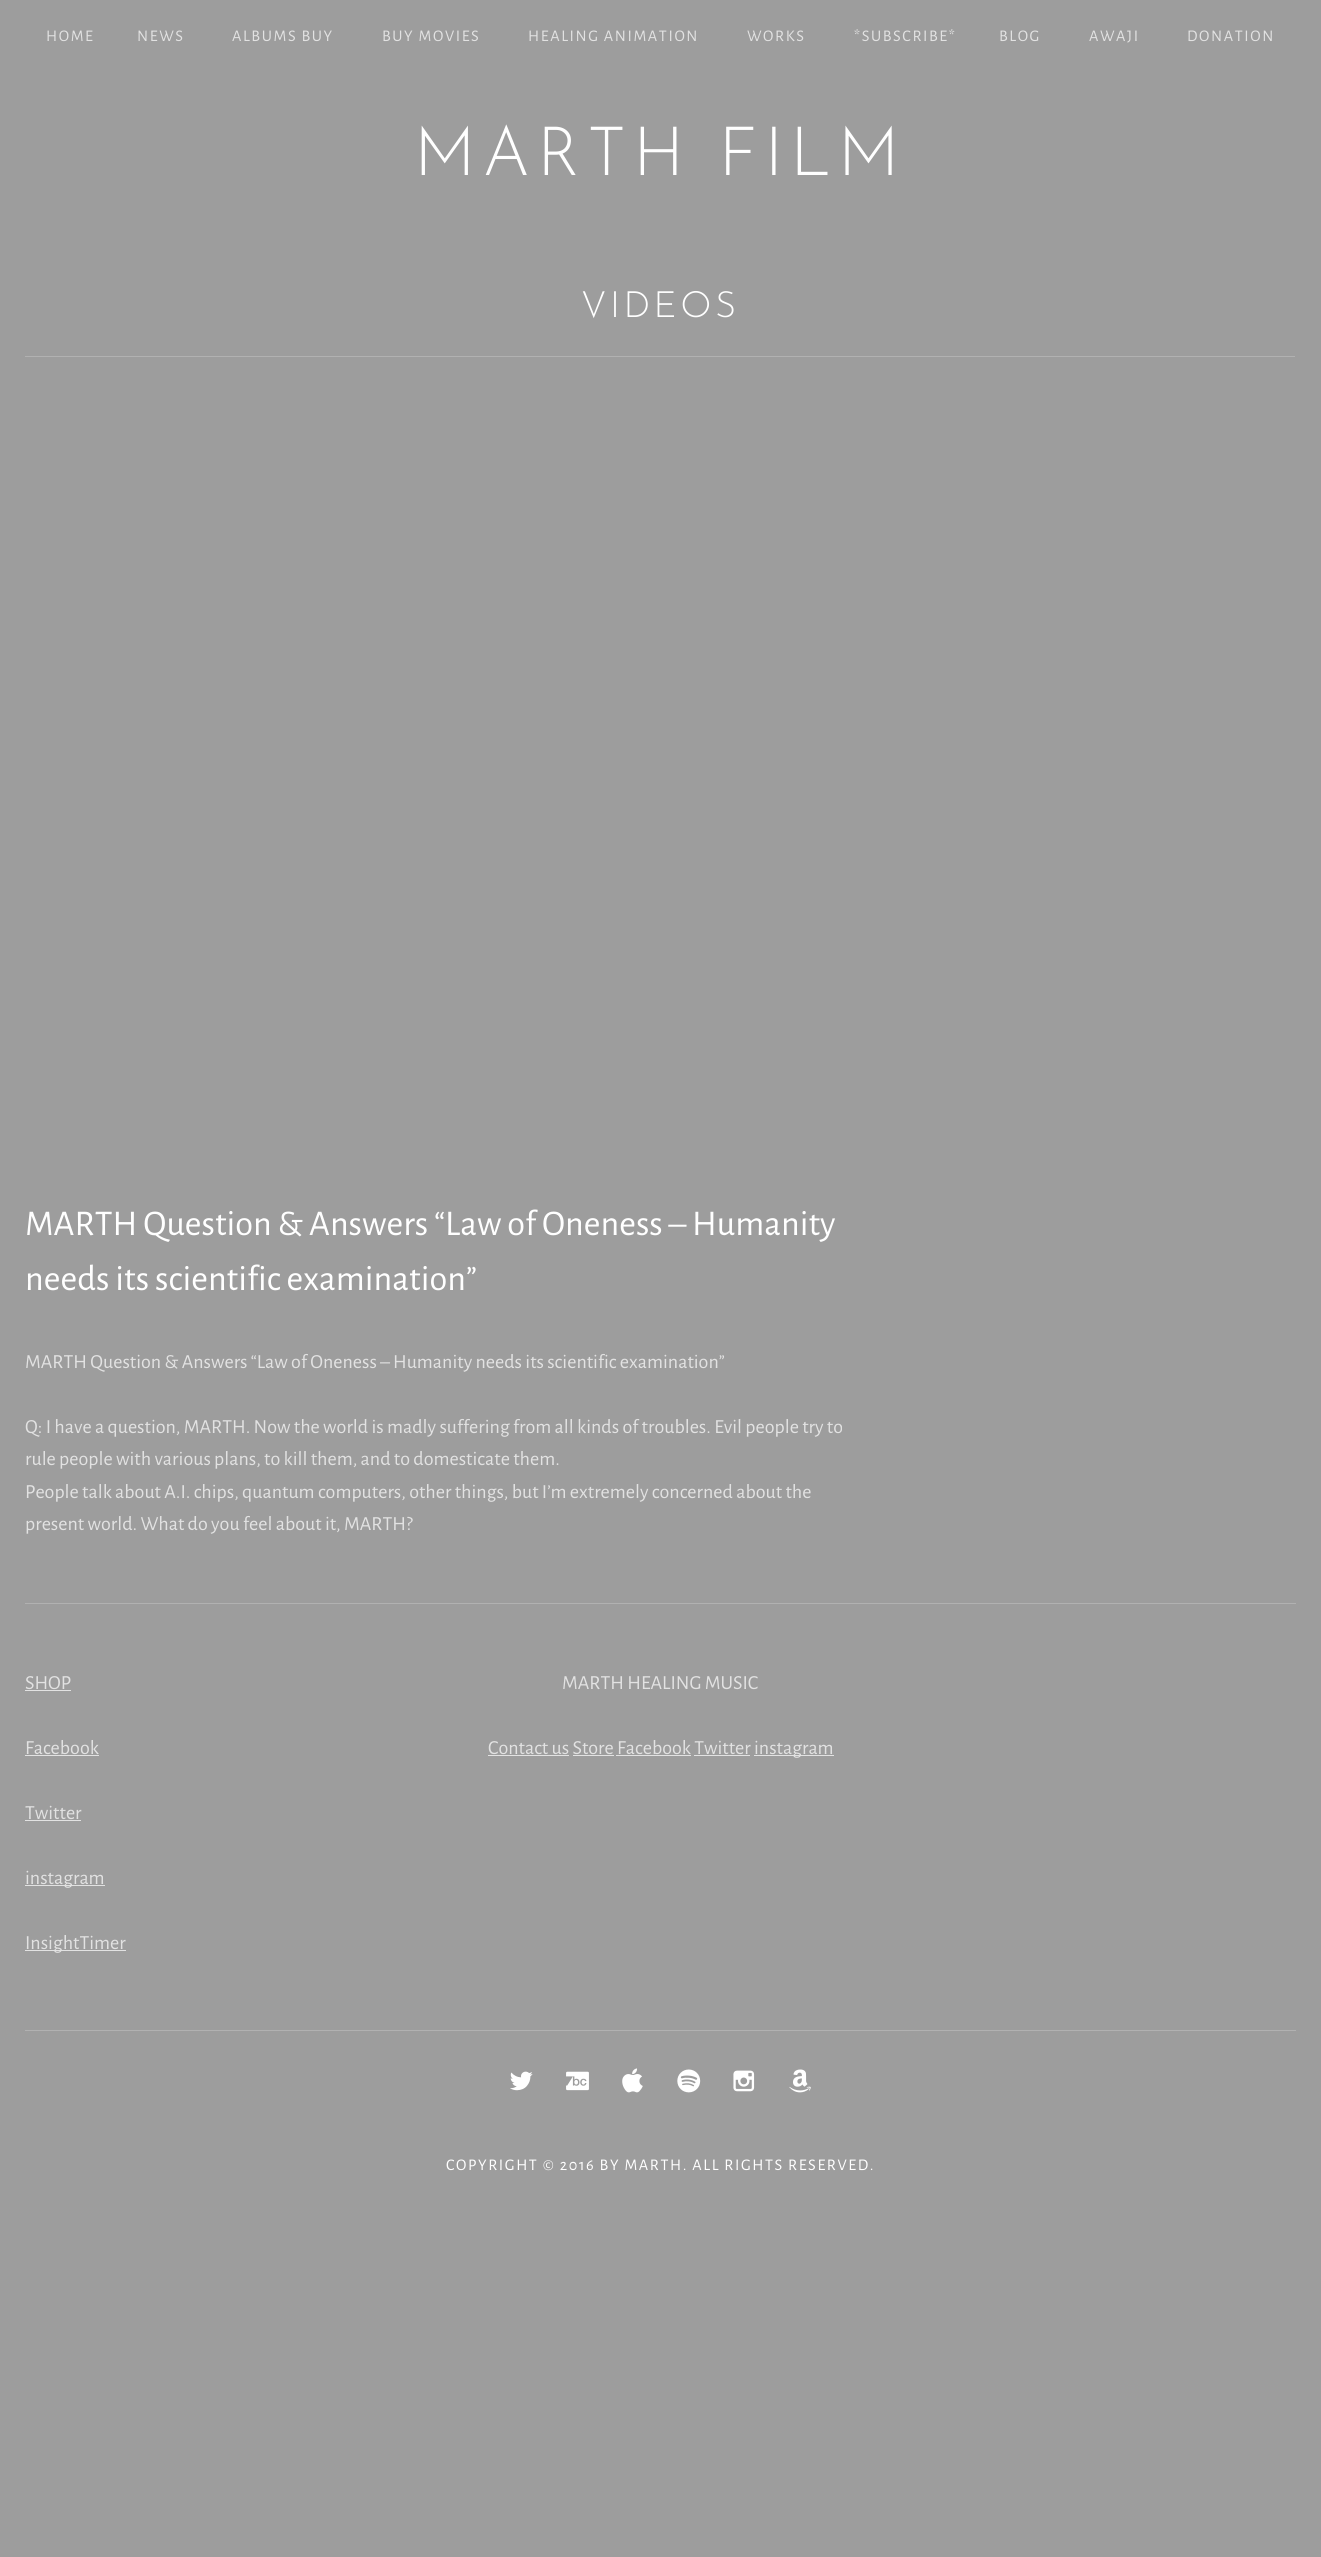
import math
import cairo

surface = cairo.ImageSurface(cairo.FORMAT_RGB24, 1321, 2557)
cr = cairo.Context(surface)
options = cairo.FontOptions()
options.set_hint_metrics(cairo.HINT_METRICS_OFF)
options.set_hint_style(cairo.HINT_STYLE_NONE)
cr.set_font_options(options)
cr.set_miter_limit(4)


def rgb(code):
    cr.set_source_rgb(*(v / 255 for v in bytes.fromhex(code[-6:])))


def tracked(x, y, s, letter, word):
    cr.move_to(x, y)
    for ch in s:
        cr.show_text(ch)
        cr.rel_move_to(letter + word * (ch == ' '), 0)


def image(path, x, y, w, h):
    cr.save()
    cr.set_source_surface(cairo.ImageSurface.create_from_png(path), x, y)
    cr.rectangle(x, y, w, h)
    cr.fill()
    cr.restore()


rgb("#9d9d9d")
cr.paint()
for x, y, w, h, color in [
    (25, 356, 1270, 1, "#b1b1b1"),
    (25, 1603, 1271, 1, "#b1b1b1"),
    (25, 1690, 46, 1, "#e2e2e2"),
    (25, 1755, 74, 1, "#e2e2e2"),
    (25, 1820, 56, 1, "#e2e2e2"),
    (25, 1885, 80, 1, "#e2e2e2"),
    (25, 1950, 101, 1, "#e2e2e2"),
    (488, 1755, 81, 1, "#e2e2e2"),
    (754, 1755, 80, 1, "#e2e2e2"),
    (573, 1755, 41, 1, "#e2e2e2"),
    (616, 1755, 75, 1, "#e2e2e2"),
    (694, 1755, 56, 1, "#e2e2e2"),
    (25, 2030, 1271, 1, "#b1b1b1"),
]:
    rgb(color)
    cr.rectangle(x, y, w, h)
    cr.fill()
image("img/1.png", 510, 2071, 23, 20)
image("img/2.png", 566, 2071, 23, 20)
image("img/3.png", 622, 2068, 21, 25)
image("img/4.png", 677, 2069, 24, 24)
image("img/5.png", 733, 2070, 22, 22)
image("img/6.png", 789, 2069, 22, 24)
cr.select_font_face("Alegreya Sans")
cr.set_font_size(16.25)
rgb("#e2e2e2")
for x, y, s in [
    (46, 41, "HOME"),
    (137, 41, "NEWS"),
    (232, 41, "ALBUMS BUY"),
    (382, 41, "BUY MOVIES"),
    (528, 41, "HEALING ANIMATION"),
    (747, 41, "WORKS"),
    (854, 41, "*SUBSCRIBE*"),
    (999, 41, "BLOG"),
    (1089, 41, "AWAJI"),
    (1187, 41, "DONATION"),
]:
    tracked(x, y, s, 1.6, 0)
cr.select_font_face("Josefin Sans Thin")
cr.set_font_size(68)
rgb("#ffffff")
tracked(414, 175, "MARTH FILM", 6.75, 0)
cr.set_font_size(36.25)
tracked(581, 317, "VIDEOS", 3.5, 0)
cr.select_font_face("Alegreya Sans")
cr.move_to(25, 1235)
cr.show_text("MARTH Question & Answers “Law of Oneness – Humanity")
cr.move_to(25, 1290)
cr.show_text("needs its scientific examination”")
cr.set_font_size(20)
rgb("#e2e2e2")
for x, y, s in [
    (25, 1368, "MARTH Question & Answers “Law of Oneness – Humanity needs its scientific examination”"),
    (25, 1433, "Q: I have a question, MARTH. Now the world is madly suffering from all kinds of troubles. Evil people try to"),
    (25, 1465, "rule people with various plans, to kill them, and to domesticate them."),
    (25, 1498, "People talk about A.I. chips, quantum computers, other things, but I’m extremely concerned about the"),
    (25, 1530, "present world. What do you feel about it, MARTH?"),
    (25, 1689, "SHOP"),
    (25, 1754, "Facebook"),
    (25, 1819, "Twitter"),
    (25, 1884, "instagram"),
    (25, 1949, "InsightTimer"),
    (562, 1689, "MARTH HEALING MUSIC"),
    (488, 1754, "Contact us Store Facebook Twitter"),
    (754, 1754, "instagram"),
]:
    cr.move_to(x, y)
    cr.show_text(s)
cr.set_font_size(16.25)
rgb("#ffffff")
tracked(446, 2170, "COPYRIGHT © 2016 BY MARTH. ALL RIGHTS RESERVED.", 1.6, 0)
surface.write_to_png("page.png")
